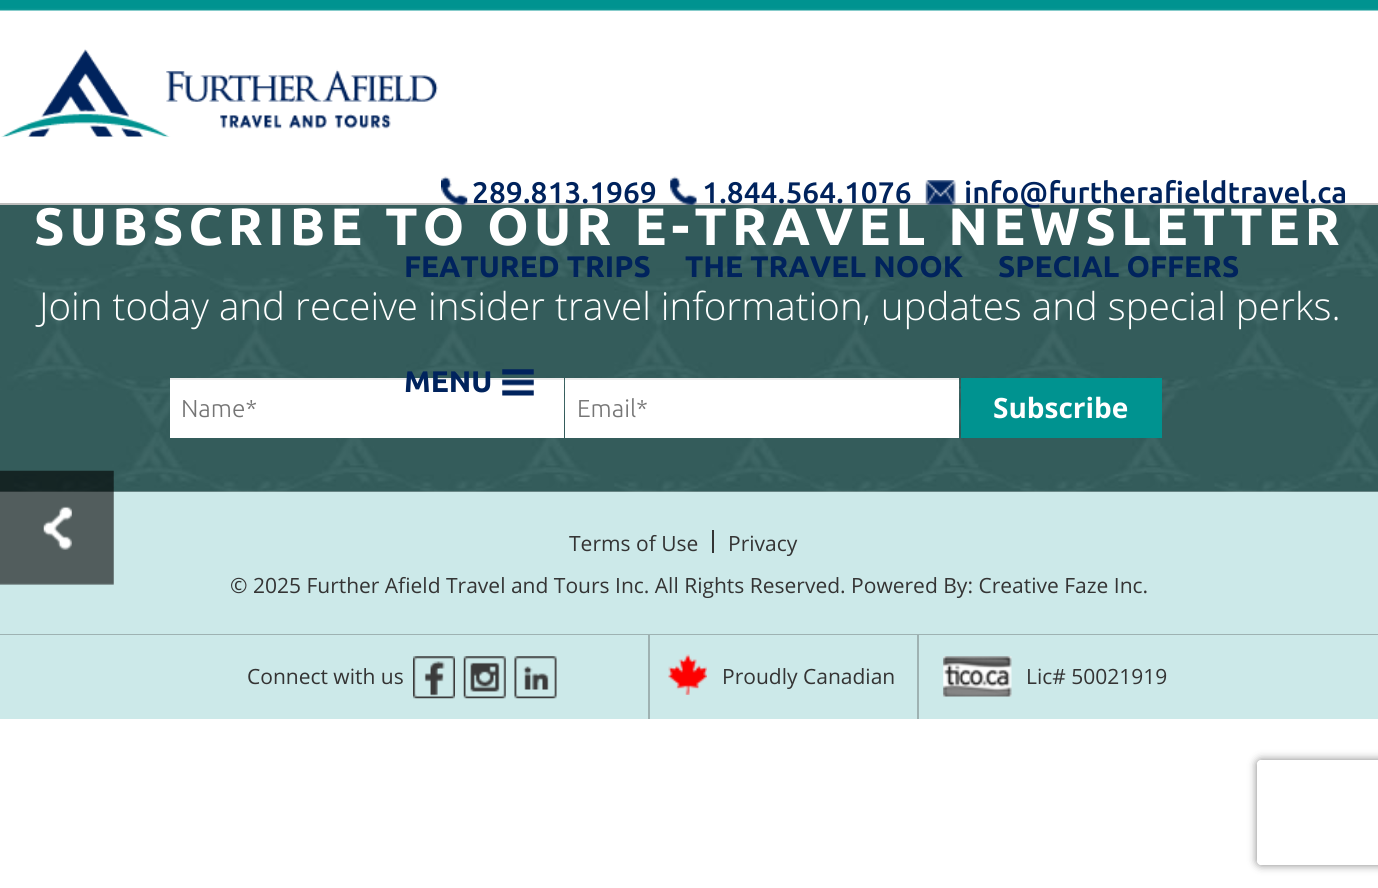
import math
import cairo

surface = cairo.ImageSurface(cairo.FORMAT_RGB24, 1378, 888)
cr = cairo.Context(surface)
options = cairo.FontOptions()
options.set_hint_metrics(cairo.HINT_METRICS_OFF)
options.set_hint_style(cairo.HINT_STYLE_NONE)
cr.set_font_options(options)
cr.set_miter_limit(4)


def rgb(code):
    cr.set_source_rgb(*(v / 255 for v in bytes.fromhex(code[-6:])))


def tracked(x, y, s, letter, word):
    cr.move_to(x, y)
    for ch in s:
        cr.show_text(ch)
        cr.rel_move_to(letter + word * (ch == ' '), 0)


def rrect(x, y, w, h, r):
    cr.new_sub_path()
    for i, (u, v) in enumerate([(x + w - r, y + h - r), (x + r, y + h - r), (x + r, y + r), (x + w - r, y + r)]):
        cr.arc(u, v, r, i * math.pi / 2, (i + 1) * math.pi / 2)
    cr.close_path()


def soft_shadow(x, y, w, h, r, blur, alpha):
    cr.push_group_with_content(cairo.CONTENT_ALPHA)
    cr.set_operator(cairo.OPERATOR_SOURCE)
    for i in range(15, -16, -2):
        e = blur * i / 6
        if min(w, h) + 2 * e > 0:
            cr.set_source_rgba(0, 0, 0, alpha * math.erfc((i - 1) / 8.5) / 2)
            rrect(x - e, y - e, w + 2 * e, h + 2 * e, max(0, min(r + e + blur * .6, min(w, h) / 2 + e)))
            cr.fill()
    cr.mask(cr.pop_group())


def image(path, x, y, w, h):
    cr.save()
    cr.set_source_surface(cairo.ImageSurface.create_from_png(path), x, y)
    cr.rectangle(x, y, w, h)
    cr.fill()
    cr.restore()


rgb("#ffffff")
cr.paint()
image("img/1.png", 0, 0, 1378, 11)
rgb("#bebebd")
cr.rectangle(0, 203, 1378, 2)
cr.fill()
image("img/2.png", 1, 49, 437, 88)
image("img/3.png", 441, 176, 27, 29)
image("img/4.png", 670, 176, 27, 29)
image("img/5.png", 925, 180, 31, 25)
image("img/7.png", 0, 205, 1378, 287)
rgb("#ffffff")
cr.rectangle(170, 380, 394, 58)
cr.fill()
rgb("#ececec")
cr.rectangle(170, 378, 394, 2)
cr.fill()
image("img/6.png", 502, 369, 32, 27)
for x, y, w, h, color in [
    (565, 380, 394, 58, "#ffffff"),
    (565, 378, 394, 2, "#ececec"),
    (961, 378, 201, 60, "#009390"),
    (0, 492, 1378, 142, "#cce9e9"),
    (0, 634, 1378, 1, "#9eb2b2"),
    (712, 530, 2, 23, "#343434"),
    (0, 635, 1378, 84, "#cce9e9"),
    (648, 635, 2, 84, "#9eb2b2"),
]:
    rgb(color)
    cr.rectangle(x, y, w, h)
    cr.fill()
image("img/8.png", 413, 656, 42, 43)
image("img/9.png", 463, 656, 43, 43)
image("img/10.png", 514, 656, 43, 43)
image("img/11.png", 668, 654, 39, 41)
cr.rectangle(917, 635, 2, 84)
cr.fill()
image("img/12.png", 943, 656, 69, 41)
image("img/13.png", 0, 470, 114, 115)
cr.save()
cr.set_fill_rule(cairo.FILL_RULE_EVEN_ODD)
cr.new_path()
cr.move_to(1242, 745)
cr.line_to(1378, 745)
cr.line_to(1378, 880)
cr.line_to(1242, 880)
cr.close_path()
cr.move_to(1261, 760)
cr.line_to(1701, 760)
cr.curve_to(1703, 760, 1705, 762, 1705, 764)
cr.line_to(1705, 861)
cr.curve_to(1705, 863, 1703, 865, 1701, 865)
cr.line_to(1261, 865)
cr.curve_to(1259, 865, 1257, 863, 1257, 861)
cr.line_to(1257, 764)
cr.curve_to(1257, 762, 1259, 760, 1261, 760)
cr.close_path()
cr.clip()
rgb("#808080")
soft_shadow(1257, 760, 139, 105, 4, 4.5, 1)
cr.restore()
cr.select_font_face("Ubuntu Medium")
cr.set_font_size(29.75)
rgb("#00235d")
for x, y, s in [
    (472, 203, "289.813.1969"),
    (702, 203, "1.844.564.1076"),
    (964, 203, "info@furtherafieldtravel.ca"),
]:
    cr.move_to(x, y)
    cr.show_text(s)
cr.select_font_face("Ubuntu", cairo.FONT_SLANT_NORMAL, cairo.FONT_WEIGHT_BOLD)
for x, y, s in [
    (404, 277, "FEATURED TRIPS"),
    (685, 277, "THE TRAVEL NOOK"),
    (998, 277, "SPECIAL OFFERS"),
    (404, 392, "MENU"),
]:
    cr.move_to(x, y)
    cr.show_text(s)
cr.set_font_size(52.5)
rgb("#ffffff")
tracked(34, 245, "SUBSCRIBE TO OUR E-TRAVEL NEWSLETTER", 5.25, 0)
cr.select_font_face("Open Sans Light")
cr.set_font_size(38.5)
cr.move_to(39, 320)
cr.show_text("Join today and receive insider travel information, updates and special perks.")
cr.select_font_face("Ubuntu Light")
cr.set_font_size(24.5)
rgb("#757575")
cr.move_to(181, 417)
cr.show_text("Name*")
cr.move_to(577, 417)
cr.show_text("Email*")
cr.select_font_face("Open Sans", cairo.FONT_SLANT_NORMAL, cairo.FONT_WEIGHT_BOLD)
cr.set_font_size(28)
rgb("#ffffff")
cr.move_to(993, 418)
cr.show_text("Subscribe")
cr.select_font_face("Open Sans")
cr.set_font_size(21)
rgb("#343434")
for x, y, s in [
    (569, 551, "Terms of Use"),
    (728, 551, "Privacy"),
    (230, 593, "© 2025 Further Afield Travel and Tours Inc. All Rights Reserved. Powered By: Creative Faze Inc."),
    (247, 684, "Connect with us"),
    (722, 684, "Proudly Canadian"),
    (1026, 684, "Lic# 50021919"),
]:
    cr.move_to(x, y)
    cr.show_text(s)
surface.write_to_png("page.png")
